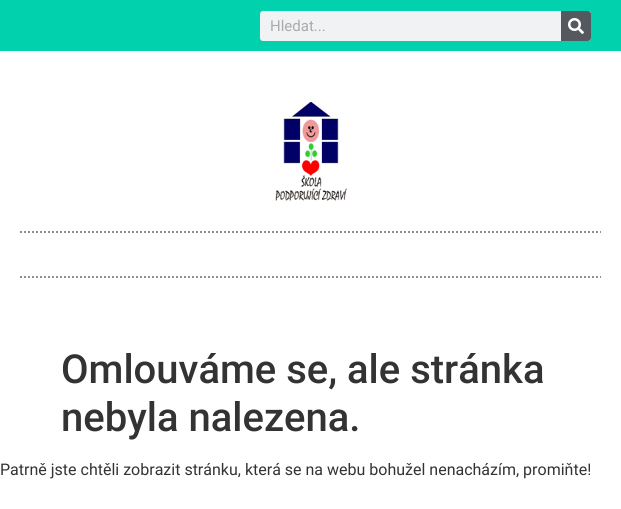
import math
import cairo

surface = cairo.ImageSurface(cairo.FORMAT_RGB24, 621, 509)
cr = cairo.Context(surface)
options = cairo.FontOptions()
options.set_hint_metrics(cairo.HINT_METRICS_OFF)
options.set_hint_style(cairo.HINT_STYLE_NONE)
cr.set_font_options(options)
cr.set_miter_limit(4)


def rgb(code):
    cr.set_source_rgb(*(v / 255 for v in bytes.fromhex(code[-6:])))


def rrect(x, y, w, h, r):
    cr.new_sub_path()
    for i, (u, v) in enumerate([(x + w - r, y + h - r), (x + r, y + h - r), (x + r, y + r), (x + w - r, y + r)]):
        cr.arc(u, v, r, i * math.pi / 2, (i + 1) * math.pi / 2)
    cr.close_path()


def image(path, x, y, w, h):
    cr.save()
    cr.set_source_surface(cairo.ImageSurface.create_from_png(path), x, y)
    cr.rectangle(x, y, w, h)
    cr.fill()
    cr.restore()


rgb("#ffffff")
cr.paint()
rgb("#02d1ae")
cr.rectangle(0, 0, 621, 51)
cr.fill()
rgb("#f1f2f3")
rrect(260, 11, 331, 30, 3)
cr.fill()
rgb("#54595f")
cr.new_path()
cr.move_to(561, 11)
cr.line_to(588, 11)
cr.curve_to(589.5, 11, 591, 12.5, 591, 14)
cr.line_to(591, 38)
cr.curve_to(591, 39.5, 589.5, 41, 588, 41)
cr.line_to(561, 41)
cr.close_path()
cr.fill()
image("img/1.png", 568, 18, 16, 16)
image("img/2.png", 275, 102, 72, 99)
cr.new_path()
cr.move_to(20, 232)
cr.line_to(601, 232)
rgb("#8e8e8e")
cr.set_dash([2, 2])
cr.stroke()
cr.new_path()
cr.move_to(20, 277)
cr.line_to(601, 277)
cr.stroke()
cr.select_font_face("Roboto")
cr.set_font_size(15)
rgb("#aaaaaa")
cr.move_to(270, 31)
cr.show_text("Hledat...")
cr.select_font_face("Roboto Medium")
cr.set_font_size(40)
rgb("#333333")
cr.move_to(61, 383)
cr.show_text("Omlouváme se, ale stránka")
cr.move_to(61, 431)
cr.show_text("nebyla nalezena.")
cr.select_font_face("Roboto")
cr.set_font_size(16)
cr.move_to(0, 475)
cr.show_text("Patrně jste chtěli zobrazit stránku, která se na webu bohužel nenacházím, promiňte!")
surface.write_to_png("page.png")
